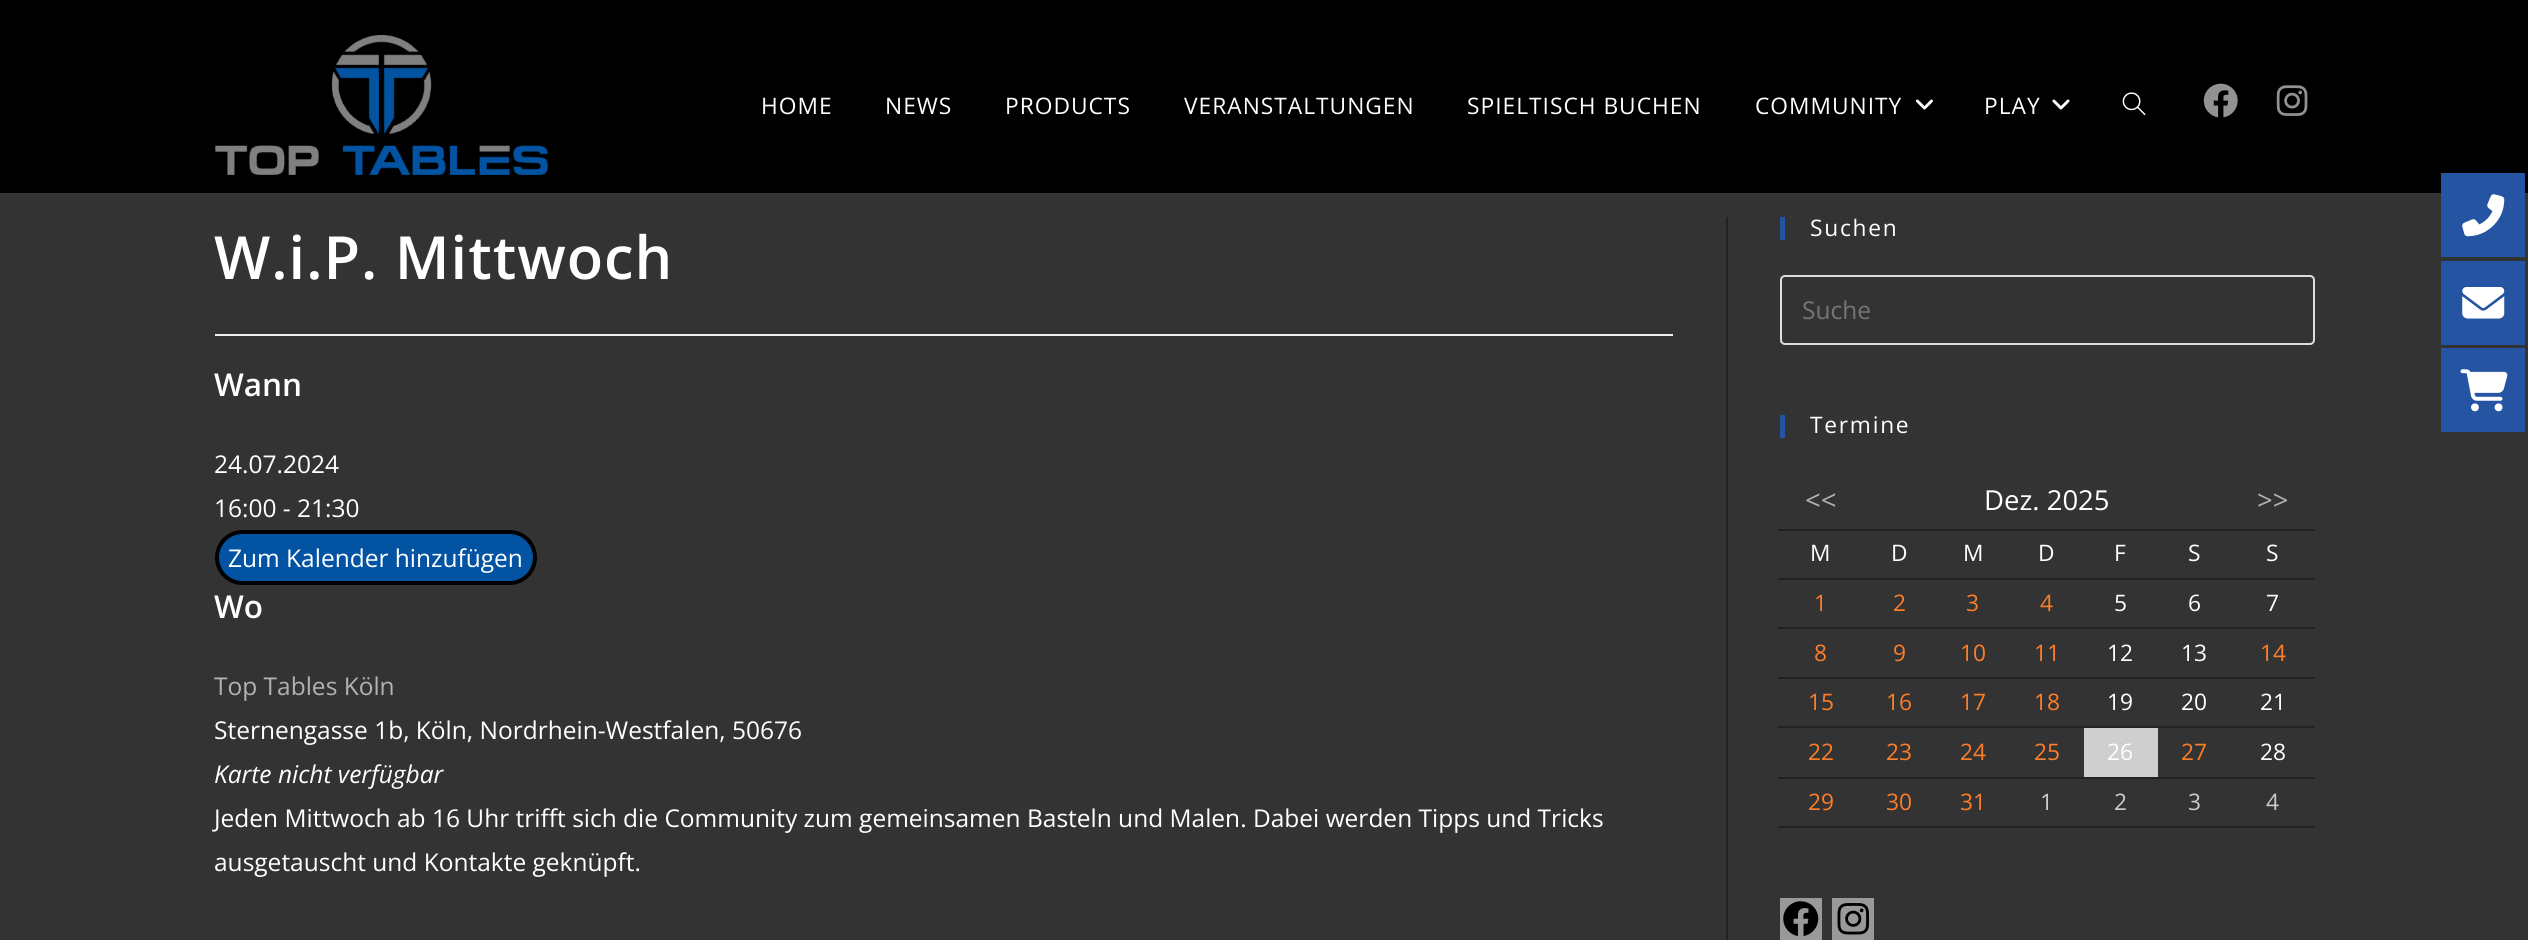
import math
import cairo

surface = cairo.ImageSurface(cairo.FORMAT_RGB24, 2528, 940)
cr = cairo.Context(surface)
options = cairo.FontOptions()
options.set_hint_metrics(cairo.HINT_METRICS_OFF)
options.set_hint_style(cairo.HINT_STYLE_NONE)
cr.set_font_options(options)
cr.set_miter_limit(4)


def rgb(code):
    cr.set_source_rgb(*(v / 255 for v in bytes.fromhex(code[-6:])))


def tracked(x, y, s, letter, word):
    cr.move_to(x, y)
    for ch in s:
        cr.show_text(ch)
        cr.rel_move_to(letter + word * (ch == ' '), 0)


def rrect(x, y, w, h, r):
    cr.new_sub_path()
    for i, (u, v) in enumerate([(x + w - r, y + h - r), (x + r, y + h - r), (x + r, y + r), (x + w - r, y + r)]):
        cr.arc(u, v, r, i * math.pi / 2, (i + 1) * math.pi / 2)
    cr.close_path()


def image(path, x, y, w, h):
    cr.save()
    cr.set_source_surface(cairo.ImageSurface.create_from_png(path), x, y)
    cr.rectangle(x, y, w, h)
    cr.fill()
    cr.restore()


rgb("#333333")
cr.paint()
rgb("#000000")
cr.rectangle(0, 0, 2528, 193)
cr.fill()
image("img/1.png", 215, 35, 333, 140)
image("img/2.png", 1916, 99, 17, 11)
image("img/3.png", 2052, 99, 18, 11)
image("img/4.png", 2122, 92, 24, 24)
image("img/5.png", 2203, 83, 35, 35)
image("img/6.png", 2276, 85, 32, 31)
rgb("#222222")
cr.rectangle(1726, 217, 2, 723)
cr.fill()
rgb("#f1f1f1")
cr.rectangle(215, 334, 1458, 2)
cr.fill()
rgb("#0254a2")
rrect(217, 532, 318, 51, 25.5)
cr.fill_preserve()
rgb("#000000")
cr.set_line_width(4)
cr.stroke()
rgb("#2454a2")
cr.rectangle(1780, 217, 5, 23)
cr.fill()
rrect(1781, 276, 533, 68, 4)
rgb("#dddddd")
cr.set_line_width(2)
cr.stroke()
for x, y, w, h, color in [
    (1780, 415, 5, 23, "#2454a2"),
    (1778, 529, 537, 2, "#222222"),
    (1778, 578, 537, 2, "#222222"),
    (1778, 627, 537, 2, "#222222"),
    (1778, 677, 537, 2, "#222222"),
    (1778, 726, 537, 2, "#222222"),
    (2084, 728, 74, 49, "#cfcfcf"),
    (1778, 777, 537, 2, "#222222"),
    (1778, 826, 537, 2, "#222222"),
    (1780, 898, 42, 42, "#999999"),
]:
    rgb(color)
    cr.rectangle(x, y, w, h)
    cr.fill()
image("img/7.png", 1783, 901, 36, 35)
cr.rectangle(1832, 898, 42, 42)
cr.fill()
image("img/8.png", 1837, 903, 32, 32)
rgb("#2454a2")
cr.rectangle(2441, 173, 84, 84)
cr.fill()
image("img/9.png", 2462, 194, 43, 43)
cr.rectangle(2441, 261, 84, 84)
cr.fill()
image("img/10.png", 2462, 287, 43, 32)
cr.rectangle(2441, 348, 84, 84)
cr.fill()
image("img/11.png", 2460, 369, 48, 43)
cr.select_font_face("Open Sans")
cr.set_font_size(22.75)
rgb("#ffffff")
for x, y, s in [
    (761, 114, "HOME"),
    (885, 114, "NEWS"),
    (1005, 114, "PRODUCTS"),
    (1184, 114, "VERANSTALTUNGEN"),
    (1467, 114, "SPIELTISCH BUCHEN"),
    (1755, 114, "COMMUNITY"),
    (1984, 114, "PLAY"),
]:
    tracked(x, y, s, 1, 0)
cr.select_font_face("Open Sans SemiBold")
cr.set_font_size(59.5)
tracked(214, 279, "W.i.P. Mittwoch", 1, 0)
cr.set_font_size(31.5)
cr.move_to(214, 396)
cr.show_text("Wann")
cr.select_font_face("Open Sans")
cr.set_font_size(24.5)
for x, y, s in [
    (214, 473, "24.07.2024"),
    (214, 517, "16:00 - 21:30"),
    (228, 567, "Zum Kalender hinzufügen"),
]:
    cr.move_to(x, y)
    cr.show_text(s)
cr.select_font_face("Open Sans SemiBold")
cr.set_font_size(31.5)
cr.move_to(214, 618)
cr.show_text("Wo")
cr.select_font_face("Open Sans")
cr.set_font_size(24.5)
rgb("#b2b2b2")
cr.move_to(214, 695)
cr.show_text("Top Tables Köln")
rgb("#ffffff")
cr.move_to(214, 739)
cr.show_text("Sternengasse 1b, Köln, Nordrhein-Westfalen, 50676")
cr.select_font_face("Open Sans", cairo.FONT_SLANT_ITALIC)
cr.move_to(214, 783)
cr.show_text("Karte nicht verfügbar")
cr.select_font_face("Open Sans")
cr.move_to(214, 827)
cr.show_text("Jeden Mittwoch ab 16 Uhr trifft sich die Community zum gemeinsamen Basteln und Malen. Dabei werden Tipps und Tricks")
cr.move_to(214, 871)
cr.show_text("ausgetauscht und Kontakte geknüpft.")
cr.set_font_size(22.75)
tracked(1810, 236, "Suchen", 1.75, 0)
cr.set_font_size(24.5)
rgb("#757575")
cr.move_to(1802, 319)
cr.show_text("Suche")
cr.set_font_size(22.75)
rgb("#ffffff")
tracked(1810, 433, "Termine", 1.75, 0)
cr.set_font_size(27.5)
rgb("#b2b2b2")
cr.move_to(1805, 510)
cr.show_text("<<")
rgb("#ffffff")
cr.move_to(1984, 510)
cr.show_text("Dez. 2025")
rgb("#b2b2b2")
cr.move_to(2257, 510)
cr.show_text(">>")
cr.set_font_size(22.75)
rgb("#ffffff")
for x, y, s in [
    (1810, 561, "M"),
    (1891, 561, "D"),
    (1963, 561, "M"),
    (2038, 561, "D"),
    (2114, 561, "F"),
    (2188, 561, "S"),
    (2266, 561, "S"),
]:
    cr.move_to(x, y)
    cr.show_text(s)
rgb("#fd7e29")
for x, y, s in [
    (1814, 611, "1"),
    (1893, 611, "2"),
    (1966, 611, "3"),
    (2040, 611, "4"),
]:
    cr.move_to(x, y)
    cr.show_text(s)
rgb("#ffffff")
for x, y, s in [
    (2114, 611, "5"),
    (2188, 611, "6"),
    (2266, 611, "7"),
]:
    cr.move_to(x, y)
    cr.show_text(s)
rgb("#fd7e29")
for x, y, s in [
    (1814, 661, "8"),
    (1893, 661, "9"),
    (1960, 661, "10"),
    (2034, 661, "11"),
]:
    cr.move_to(x, y)
    cr.show_text(s)
rgb("#ffffff")
cr.move_to(2107, 661)
cr.show_text("12")
cr.move_to(2181, 661)
cr.show_text("13")
rgb("#fd7e29")
for x, y, s in [
    (2260, 661, "14"),
    (1808, 710, "15"),
    (1886, 710, "16"),
    (1960, 710, "17"),
    (2034, 710, "18"),
]:
    cr.move_to(x, y)
    cr.show_text(s)
rgb("#ffffff")
for x, y, s in [
    (2107, 710, "19"),
    (2181, 710, "20"),
    (2260, 710, "21"),
]:
    cr.move_to(x, y)
    cr.show_text(s)
rgb("#fd7e29")
for x, y, s in [
    (1808, 760, "22"),
    (1886, 760, "23"),
    (1960, 760, "24"),
    (2034, 760, "25"),
]:
    cr.move_to(x, y)
    cr.show_text(s)
rgb("#ffffff")
cr.move_to(2107, 760)
cr.show_text("26")
rgb("#fd7e29")
cr.move_to(2181, 760)
cr.show_text("27")
rgb("#ffffff")
cr.move_to(2260, 760)
cr.show_text("28")
rgb("#fd7e29")
for x, y, s in [
    (1808, 810, "29"),
    (1886, 810, "30"),
    (1960, 810, "31"),
]:
    cr.move_to(x, y)
    cr.show_text(s)
rgb("#cccccc")
for x, y, s in [
    (2040, 810, "1"),
    (2114, 810, "2"),
    (2188, 810, "3"),
    (2266, 810, "4"),
]:
    cr.move_to(x, y)
    cr.show_text(s)
surface.write_to_png("page.png")
